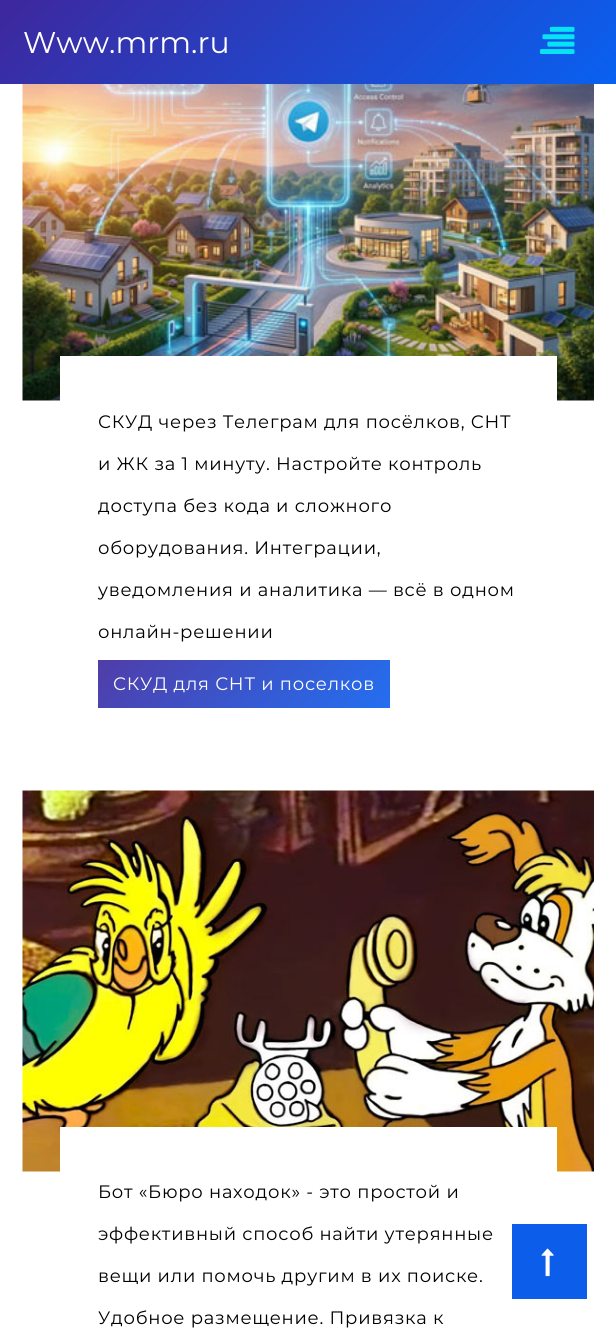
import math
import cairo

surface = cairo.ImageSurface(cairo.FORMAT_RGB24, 616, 1328)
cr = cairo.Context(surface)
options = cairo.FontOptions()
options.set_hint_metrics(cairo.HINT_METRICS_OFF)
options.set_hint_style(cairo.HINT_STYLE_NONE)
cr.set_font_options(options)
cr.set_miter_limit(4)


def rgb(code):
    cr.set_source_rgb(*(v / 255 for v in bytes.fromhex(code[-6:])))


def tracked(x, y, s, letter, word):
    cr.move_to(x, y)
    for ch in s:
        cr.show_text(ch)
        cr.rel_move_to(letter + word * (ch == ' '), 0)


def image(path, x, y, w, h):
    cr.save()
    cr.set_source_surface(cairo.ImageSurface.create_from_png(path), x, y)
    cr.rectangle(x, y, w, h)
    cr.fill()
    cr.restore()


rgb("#ffffff")
cr.paint()
gradient = cairo.LinearGradient(133, -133, 483, 217)
gradient.add_color_stop_rgba(0, 0.243, 0.153, 0.616, 1)
gradient.add_color_stop_rgba(1, 0.035, 0.38, 0.945, 1)
cr.set_source(gradient)
cr.rectangle(0, 0, 616, 84)
cr.fill()
image("img/1.png", 540, 26, 35, 28)
image("img/2.png", 22, 84, 572, 317)
rgb("#ffffff")
cr.rectangle(60, 356, 497, 45)
cr.fill()
gradient = cairo.LinearGradient(159, 599, 329, 769)
gradient.add_color_stop_rgba(0, 0.314, 0.239, 0.659, 1)
gradient.add_color_stop_rgba(1, 0.137, 0.435, 0.945, 1)
cr.set_source(gradient)
cr.rectangle(98, 660, 292, 48)
cr.fill()
image("img/3.png", 22, 790, 572, 382)
rgb("#ffffff")
cr.rectangle(60, 1127, 497, 45)
cr.fill()
rgb("#0d5deb")
cr.rectangle(512, 1224, 75, 75)
cr.fill()
image("img/4.png", 541, 1248, 13, 29)
cr.select_font_face("Montserrat")
cr.set_font_size(30)
rgb("#ffffff")
cr.move_to(23, 53)
cr.show_text("Www.mrm.ru")
cr.set_font_size(18)
rgb("#000000")
for x, y, s in [
    (98, 428, "СКУД через Телеграм для посёлков, СНТ"),
    (98, 470, "и ЖК за 1 минуту. Настройте контроль"),
    (98, 512, "доступа без кода и сложного"),
    (98, 554, "оборудования. Интеграции,"),
    (98, 596, "уведомления и аналитика — всё в одном"),
    (98, 638, "онлайн-решении"),
]:
    tracked(x, y, s, 0.75, 0)
rgb("#ffffff")
tracked(113, 690, "СКУД для СНТ и поселков", 0.75, 0)
rgb("#000000")
for x, y, s in [
    (98, 1198, "Бот «Бюро находок» - это простой и"),
    (98, 1240, "эффективный способ найти утерянные"),
    (98, 1282, "вещи или помочь другим в их поиске."),
    (98, 1324, "Удобное размещение. Привязка к"),
]:
    tracked(x, y, s, 0.75, 0)
surface.write_to_png("page.png")
